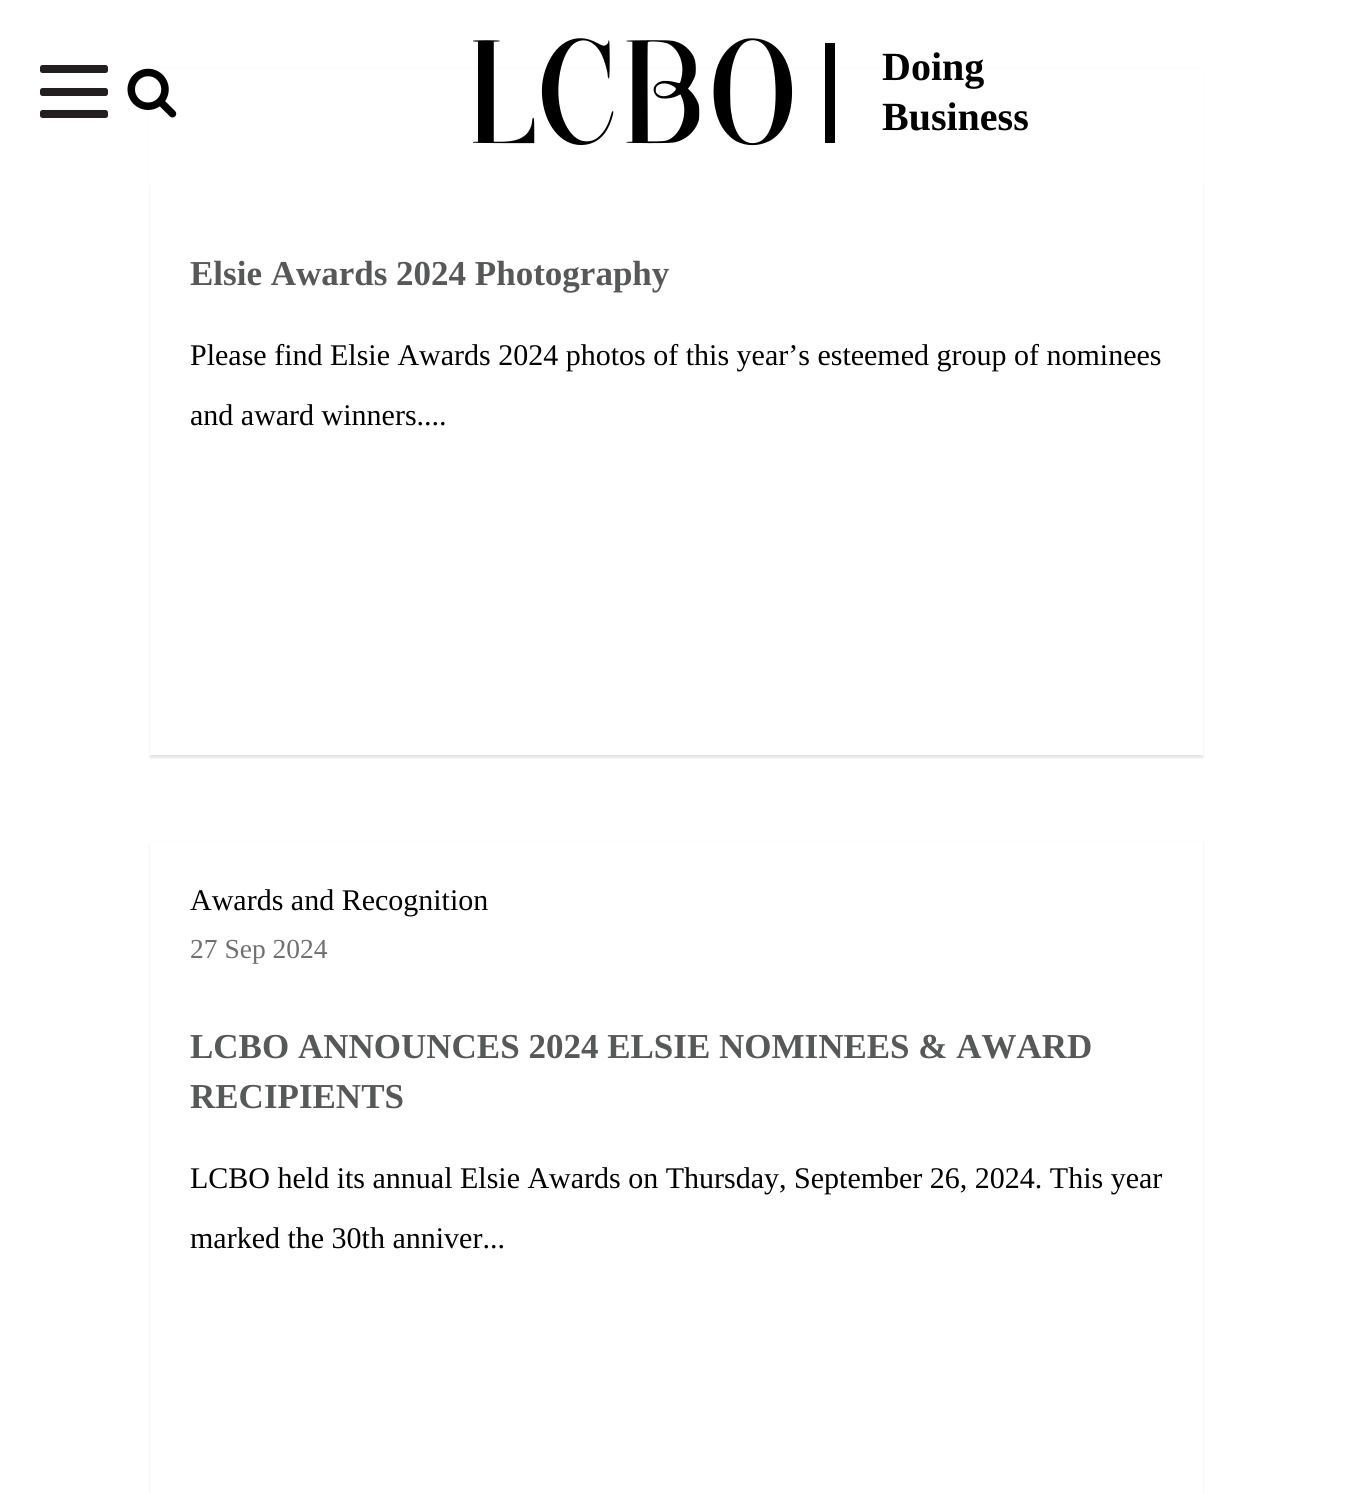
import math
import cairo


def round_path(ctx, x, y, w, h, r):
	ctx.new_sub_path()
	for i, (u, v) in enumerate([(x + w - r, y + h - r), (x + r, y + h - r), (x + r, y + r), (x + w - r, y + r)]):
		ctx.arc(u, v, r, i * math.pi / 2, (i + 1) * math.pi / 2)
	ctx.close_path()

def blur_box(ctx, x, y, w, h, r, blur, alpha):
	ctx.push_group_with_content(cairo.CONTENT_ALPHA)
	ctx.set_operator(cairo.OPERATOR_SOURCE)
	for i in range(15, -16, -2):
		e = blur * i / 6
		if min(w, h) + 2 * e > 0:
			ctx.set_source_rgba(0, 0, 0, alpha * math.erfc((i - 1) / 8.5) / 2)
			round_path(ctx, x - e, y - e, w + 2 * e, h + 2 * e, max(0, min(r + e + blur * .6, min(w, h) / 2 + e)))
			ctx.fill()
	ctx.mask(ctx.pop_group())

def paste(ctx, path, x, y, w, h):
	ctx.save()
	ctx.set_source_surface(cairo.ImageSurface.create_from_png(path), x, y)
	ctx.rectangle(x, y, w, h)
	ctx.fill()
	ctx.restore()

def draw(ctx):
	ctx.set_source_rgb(1, 1, 1)
	ctx.paint()
	ctx.set_source_rgb(0, 0, 0)
	blur_box(ctx, 150, 70, 1053, 688, 0, 1, 0.1)
	ctx.set_source_rgb(1, 1, 1)
	ctx.rectangle(149, 69, 1055, 116)
	ctx.fill()
	ctx.set_source_rgb(0.137, 0.122, 0.125)
	round_path(ctx, 40, 65, 68, 8, 2.5)
	ctx.fill()
	round_path(ctx, 40, 88, 68, 8, 2.5)
	ctx.fill()
	round_path(ctx, 40, 110, 68, 8, 2.5)
	ctx.fill()
	paste(ctx, 'media/1.png', 127, 68, 50, 50)
	paste(ctx, 'media/2.png', 473, 38, 320, 108)
	ctx.set_source_rgb(0, 0, 0)
	ctx.rectangle(825, 43, 10, 100)
	ctx.fill()
	ctx.select_font_face('Liberation Serif', cairo.FONT_SLANT_NORMAL, cairo.FONT_WEIGHT_BOLD)
	ctx.set_font_size(40)
	ctx.move_to(882, 80)
	ctx.show_text('Doing')
	ctx.move_to(882, 130)
	ctx.show_text('Business')
	ctx.set_source_rgb(1, 1, 1)
	ctx.rectangle(150, 185, 1053, 570)
	ctx.fill()
	ctx.set_font_size(35)
	ctx.set_source_rgb(0.341, 0.345, 0.345)
	ctx.move_to(190, 285)
	ctx.show_text('Elsie Awards 2024 Photography')
	ctx.select_font_face('Liberation Serif')
	ctx.set_font_size(30)
	ctx.set_source_rgb(0, 0, 0)
	ctx.move_to(190, 365)
	ctx.show_text('Please find Elsie Awards 2024 photos of this year’s esteemed group of nominees')
	ctx.move_to(190, 425)
	ctx.show_text('and award winners....')
	ctx.set_source_rgb(0, 0, 0)
	blur_box(ctx, 150, 843, 1053, 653, 0, 1, 0.1)
	ctx.set_source_rgb(1, 1, 1)
	ctx.rectangle(150, 842, 1053, 651)
	ctx.fill()
	ctx.set_source_rgb(0, 0, 0)
	ctx.move_to(190, 910)
	ctx.show_text('Awards and Recognition')
	ctx.set_font_size(27.5)
	ctx.set_source_rgb(0.443, 0.439, 0.439)
	ctx.move_to(190, 958)
	ctx.show_text('27 Sep 2024')
	ctx.select_font_face('Liberation Serif', cairo.FONT_SLANT_NORMAL, cairo.FONT_WEIGHT_BOLD)
	ctx.set_font_size(35)
	ctx.set_source_rgb(0.341, 0.345, 0.345)
	ctx.move_to(190, 1058)
	ctx.show_text('LCBO ANNOUNCES 2024 ELSIE NOMINEES & AWARD')
	ctx.move_to(190, 1108)
	ctx.show_text('RECIPIENTS')
	ctx.select_font_face('Liberation Serif')
	ctx.set_font_size(30)
	ctx.set_source_rgb(0, 0, 0)
	ctx.move_to(190, 1188)
	ctx.show_text('LCBO held its annual Elsie Awards on Thursday, September 26, 2024. This year')
	ctx.move_to(190, 1248)
	ctx.show_text('marked the 30th anniver...')


surface = cairo.ImageSurface(cairo.FORMAT_RGB24, 1351, 1493)
ctx = cairo.Context(surface)
options = cairo.FontOptions()
options.set_hint_metrics(cairo.HINT_METRICS_OFF)
options.set_hint_style(cairo.HINT_STYLE_NONE)
ctx.set_font_options(options)
ctx.set_miter_limit(4)
draw(ctx)
surface.write_to_png('image.png')
